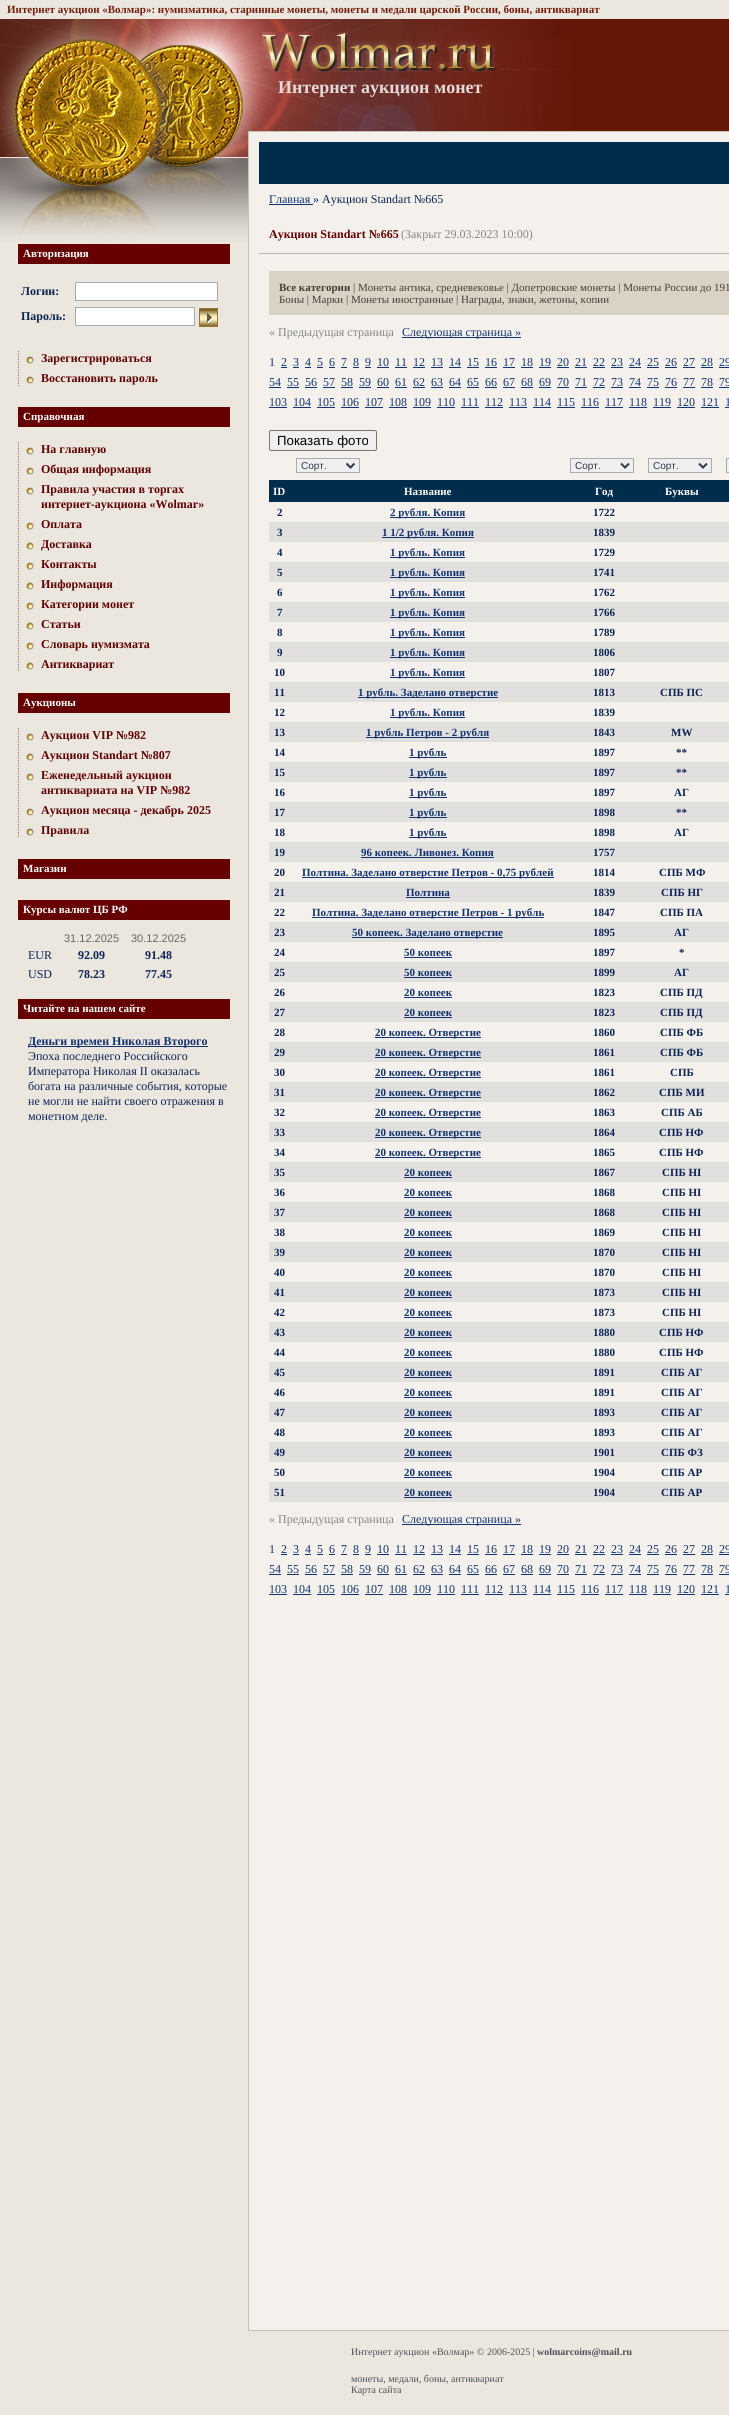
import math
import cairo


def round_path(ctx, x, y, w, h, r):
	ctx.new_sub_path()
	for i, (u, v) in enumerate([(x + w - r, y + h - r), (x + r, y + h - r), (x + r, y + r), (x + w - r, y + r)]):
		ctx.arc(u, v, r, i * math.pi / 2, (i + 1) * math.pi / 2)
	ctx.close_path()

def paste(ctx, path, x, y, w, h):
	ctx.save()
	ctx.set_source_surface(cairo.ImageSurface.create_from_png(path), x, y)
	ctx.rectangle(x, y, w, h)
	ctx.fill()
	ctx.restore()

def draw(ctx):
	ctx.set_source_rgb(0.918, 0.902, 0.871)
	ctx.paint()
	paste(ctx, 'media/1.png', 574, 19, 155, 112)
	ctx.select_font_face('Liberation Serif', cairo.FONT_SLANT_NORMAL, cairo.FONT_WEIGHT_BOLD)
	ctx.set_font_size(11)
	ctx.set_source_rgb(0.459, 0.118, 0.051)
	ctx.move_to(7, 13)
	ctx.show_text('Интернет аукцион «Волмар»: нумизматика, старинные монеты, монеты и медали царской России, боны, антиквариат')
	paste(ctx, 'media/2.png', 0, 19, 729, 223)
	paste(ctx, 'media/3.png', 262, 32, 236, 40)
	ctx.set_font_size(18)
	ctx.set_source_rgb(0.894, 0.851, 0.847)
	ctx.move_to(278, 93)
	ctx.show_text('Интернет аукцион монет')
	ctx.set_source_rgb(0.4, 0, 0)
	ctx.rectangle(18, 244, 212, 20)
	ctx.fill()
	ctx.set_font_size(11)
	ctx.set_source_rgb(1, 1, 1)
	ctx.move_to(23, 257)
	ctx.show_text('Авторизация')
	ctx.set_font_size(12)
	ctx.set_source_rgb(0.043, 0.141, 0.325)
	ctx.move_to(21, 295)
	ctx.show_text('Логин:')
	ctx.set_source_rgb(1, 1, 1)
	ctx.rectangle(75.5, 282.5, 142, 18)
	ctx.fill_preserve()
	ctx.set_source_rgb(0.647, 0.675, 0.698)
	ctx.set_line_width(1)
	ctx.stroke()
	ctx.set_source_rgb(0.043, 0.141, 0.325)
	ctx.move_to(21, 320)
	ctx.show_text('Пароль:')
	ctx.set_source_rgb(1, 1, 1)
	ctx.rectangle(75.5, 307.5, 119, 18)
	ctx.fill_preserve()
	ctx.set_source_rgb(0.647, 0.675, 0.698)
	ctx.stroke()
	paste(ctx, 'media/4.png', 199, 308, 19, 19)
	ctx.new_path()
	ctx.move_to(18.5, 351)
	ctx.line_to(18.5, 386)
	ctx.set_source_rgb(0.647, 0.431, 0.412)
	ctx.set_dash([1, 1])
	ctx.stroke()
	paste(ctx, 'media/5.png', 26, 356, 8, 8)
	ctx.set_source_rgb(0.373, 0.004, 0.004)
	ctx.move_to(41, 362)
	ctx.show_text('Зарегистрироваться')
	paste(ctx, 'media/5.png', 26, 376, 8, 8)
	ctx.move_to(41, 382)
	ctx.show_text('Восстановить пароль')
	ctx.set_source_rgb(0.4, 0, 0)
	ctx.rectangle(18, 407, 212, 20)
	ctx.fill()
	ctx.set_font_size(11)
	ctx.set_source_rgb(1, 1, 1)
	ctx.move_to(23, 420)
	ctx.show_text('Справочная')
	ctx.new_path()
	ctx.move_to(18.5, 442)
	ctx.line_to(18.5, 672)
	ctx.set_source_rgb(0.647, 0.431, 0.412)
	ctx.stroke()
	paste(ctx, 'media/5.png', 26, 447, 8, 8)
	ctx.set_font_size(12)
	ctx.set_source_rgb(0.373, 0.004, 0.004)
	ctx.move_to(41, 453)
	ctx.show_text('На главную')
	paste(ctx, 'media/5.png', 26, 467, 8, 8)
	ctx.move_to(41, 473)
	ctx.show_text('Общая информация')
	paste(ctx, 'media/5.png', 26, 487, 8, 8)
	ctx.move_to(41, 493)
	ctx.show_text('Правила участия в торгах')
	ctx.move_to(41, 508)
	ctx.show_text('интернет-аукциона «Wolmar»')
	paste(ctx, 'media/5.png', 26, 522, 8, 8)
	ctx.move_to(41, 528)
	ctx.show_text('Оплата')
	paste(ctx, 'media/5.png', 26, 542, 8, 8)
	ctx.move_to(41, 548)
	ctx.show_text('Доставка')
	paste(ctx, 'media/5.png', 26, 562, 8, 8)
	ctx.move_to(41, 568)
	ctx.show_text('Контакты')
	paste(ctx, 'media/5.png', 26, 582, 8, 8)
	ctx.move_to(41, 588)
	ctx.show_text('Информация')
	paste(ctx, 'media/5.png', 26, 602, 8, 8)
	ctx.move_to(41, 608)
	ctx.show_text('Категории монет')
	paste(ctx, 'media/5.png', 26, 622, 8, 8)
	ctx.move_to(41, 628)
	ctx.show_text('Статьи')
	paste(ctx, 'media/5.png', 26, 642, 8, 8)
	ctx.move_to(41, 648)
	ctx.show_text('Словарь нумизмата')
	paste(ctx, 'media/5.png', 26, 662, 8, 8)
	ctx.move_to(41, 668)
	ctx.show_text('Антиквариат')
	ctx.set_source_rgb(0.4, 0, 0)
	ctx.rectangle(18, 693, 212, 20)
	ctx.fill()
	ctx.set_font_size(11)
	ctx.set_source_rgb(1, 1, 1)
	ctx.move_to(23, 706)
	ctx.show_text('Аукционы')
	ctx.new_path()
	ctx.move_to(18.5, 728)
	ctx.line_to(18.5, 838)
	ctx.set_source_rgb(0.647, 0.431, 0.412)
	ctx.stroke()
	paste(ctx, 'media/5.png', 26, 733, 8, 8)
	ctx.set_font_size(12)
	ctx.set_source_rgb(0.373, 0.004, 0.004)
	ctx.move_to(41, 739)
	ctx.show_text('Аукцион VIP №982')
	paste(ctx, 'media/5.png', 26, 753, 8, 8)
	ctx.move_to(41, 759)
	ctx.show_text('Аукцион Standart №807')
	paste(ctx, 'media/5.png', 26, 773, 8, 8)
	ctx.move_to(41, 779)
	ctx.show_text('Еженедельный аукцион')
	ctx.move_to(41, 794)
	ctx.show_text('антиквариата на VIP №982')
	paste(ctx, 'media/5.png', 26, 808, 8, 8)
	ctx.move_to(41, 814)
	ctx.show_text('Аукцион месяца - декабрь 2025')
	paste(ctx, 'media/5.png', 26, 828, 8, 8)
	ctx.move_to(41, 834)
	ctx.show_text('Правила')
	ctx.set_source_rgb(0.4, 0, 0)
	ctx.rectangle(18, 859, 212, 20)
	ctx.fill()
	ctx.set_font_size(11)
	ctx.set_source_rgb(1, 1, 1)
	ctx.move_to(23, 872)
	ctx.show_text('Магазин')
	ctx.set_source_rgb(0.4, 0, 0)
	ctx.rectangle(18, 900, 212, 20)
	ctx.fill()
	ctx.set_source_rgb(1, 1, 1)
	ctx.move_to(23, 913)
	ctx.show_text('Курсы валют ЦБ РФ')
	ctx.select_font_face('Liberation Sans')
	ctx.set_source_rgb(0.4, 0.4, 0.4)
	ctx.move_to(64, 942)
	ctx.show_text('31.12.2025')
	ctx.move_to(131, 942)
	ctx.show_text('30.12.2025')
	ctx.select_font_face('Liberation Serif')
	ctx.set_font_size(12)
	ctx.set_source_rgb(0.043, 0.141, 0.325)
	ctx.move_to(28, 959)
	ctx.show_text('EUR')
	ctx.select_font_face('Liberation Serif', cairo.FONT_SLANT_NORMAL, cairo.FONT_WEIGHT_BOLD)
	ctx.move_to(78, 959)
	ctx.show_text('92.09')
	ctx.move_to(145, 959)
	ctx.show_text('91.48')
	ctx.select_font_face('Liberation Serif')
	ctx.move_to(28, 978)
	ctx.show_text('USD')
	ctx.select_font_face('Liberation Serif', cairo.FONT_SLANT_NORMAL, cairo.FONT_WEIGHT_BOLD)
	ctx.move_to(78, 978)
	ctx.show_text('78.23')
	ctx.move_to(145, 978)
	ctx.show_text('77.45')
	ctx.set_source_rgb(0.4, 0, 0)
	ctx.rectangle(18, 999, 212, 20)
	ctx.fill()
	ctx.set_font_size(11)
	ctx.set_source_rgb(1, 1, 1)
	ctx.move_to(23, 1012)
	ctx.show_text('Читайте на нашем сайте')
	ctx.set_source_rgb(0.075, 0.204, 0.439)
	ctx.rectangle(28, 1046, 180, 1)
	ctx.fill()
	ctx.set_font_size(12)
	ctx.move_to(28, 1045)
	ctx.show_text('Деньги времен Николая Второго')
	ctx.select_font_face('Liberation Serif')
	ctx.set_source_rgb(0.043, 0.141, 0.325)
	for x, y, s in [
		(28, 1060, 'Эпоха последнего Российского'),
		(28, 1075, 'Императора Николая II оказалась'),
		(28, 1090, 'богата на различные события, которые'),
		(28, 1105, 'не могли не найти своего отражения в'),
		(28, 1120, 'монетном деле.'),
	]:
		ctx.move_to(x, y)
		ctx.show_text(s)
	ctx.set_source_rgb(0.957, 0.945, 0.922)
	ctx.rectangle(249, 132, 480, 2198)
	ctx.fill()
	ctx.set_source_rgb(0.784, 0.753, 0.71)
	ctx.rectangle(248, 2330, 481, 1)
	ctx.rectangle(248, 242, 1, 2089)
	ctx.fill()
	ctx.set_source_rgb(0, 0.176, 0.298)
	ctx.rectangle(259, 142, 470, 42)
	ctx.fill()
	ctx.set_source_rgb(0.075, 0.204, 0.439)
	ctx.move_to(269, 203)
	ctx.show_text('Главная')
	ctx.rectangle(269, 204, 44, 1)
	ctx.fill()
	ctx.set_source_rgb(0.043, 0.141, 0.325)
	ctx.move_to(313, 203)
	ctx.show_text('» Аукцион Standart №665')
	ctx.set_source_rgb(0.733, 0.714, 0.682)
	ctx.rectangle(259, 253, 470, 1)
	ctx.fill()
	ctx.select_font_face('Liberation Serif', cairo.FONT_SLANT_NORMAL, cairo.FONT_WEIGHT_BOLD)
	ctx.set_source_rgb(0.4, 0, 0)
	ctx.move_to(269, 238)
	ctx.show_text('Аукцион Standart №665')
	ctx.select_font_face('Liberation Serif')
	ctx.set_source_rgb(0.533, 0.533, 0.533)
	ctx.move_to(401, 238)
	ctx.show_text('(Закрыт 29.03.2023 10:00)')
	ctx.set_source_rgb(0.855, 0.827, 0.773)
	ctx.rectangle(269, 271, 460, 44)
	ctx.fill()
	ctx.select_font_face('Liberation Serif', cairo.FONT_SLANT_NORMAL, cairo.FONT_WEIGHT_BOLD)
	ctx.set_font_size(11)
	ctx.set_source_rgb(0.267, 0.251, 0.22)
	ctx.move_to(279, 291)
	ctx.show_text('Все категории')
	ctx.select_font_face('Liberation Serif')
	ctx.move_to(353, 291)
	ctx.show_text('| Монеты антика, средневековье | Допетровские монеты | Монеты России до 191')
	ctx.move_to(279, 303)
	ctx.show_text('Боны | Марки | Монеты иностранные | Награды, знаки, жетоны, копии')
	ctx.set_font_size(12)
	ctx.set_source_rgb(0.533, 0.533, 0.533)
	ctx.move_to(269, 336)
	ctx.show_text('« Предыдущая страница')
	ctx.set_source_rgb(0.075, 0.204, 0.439)
	ctx.rectangle(402, 337, 119, 1)
	ctx.fill()
	for x, y, s in [
		(402, 336, 'Следующая страница »'),
		(269, 366, '1'),
		(281, 366, '2'),
	]:
		ctx.move_to(x, y)
		ctx.show_text(s)
	ctx.rectangle(281, 367, 6, 1)
	ctx.fill()
	ctx.move_to(293, 366)
	ctx.show_text('3')
	ctx.rectangle(293, 367, 6, 1)
	ctx.fill()
	ctx.move_to(305, 366)
	ctx.show_text('4')
	ctx.rectangle(305, 367, 6, 1)
	ctx.fill()
	ctx.move_to(317, 366)
	ctx.show_text('5')
	ctx.rectangle(317, 367, 6, 1)
	ctx.fill()
	ctx.move_to(329, 366)
	ctx.show_text('6')
	ctx.rectangle(329, 367, 6, 1)
	ctx.fill()
	ctx.move_to(341, 366)
	ctx.show_text('7')
	ctx.rectangle(341, 367, 6, 1)
	ctx.fill()
	ctx.move_to(353, 366)
	ctx.show_text('8')
	ctx.rectangle(353, 367, 6, 1)
	ctx.fill()
	ctx.move_to(365, 366)
	ctx.show_text('9')
	ctx.rectangle(365, 367, 6, 1)
	ctx.fill()
	ctx.move_to(377, 366)
	ctx.show_text('10')
	ctx.rectangle(377, 367, 12, 1)
	ctx.fill()
	ctx.move_to(395, 366)
	ctx.show_text('11')
	ctx.rectangle(395, 367, 12, 1)
	ctx.fill()
	ctx.move_to(413, 366)
	ctx.show_text('12')
	ctx.rectangle(413, 367, 12, 1)
	ctx.fill()
	ctx.move_to(431, 366)
	ctx.show_text('13')
	ctx.rectangle(431, 367, 12, 1)
	ctx.fill()
	ctx.move_to(449, 366)
	ctx.show_text('14')
	ctx.rectangle(449, 367, 12, 1)
	ctx.fill()
	ctx.move_to(467, 366)
	ctx.show_text('15')
	ctx.rectangle(467, 367, 12, 1)
	ctx.fill()
	ctx.move_to(485, 366)
	ctx.show_text('16')
	ctx.rectangle(485, 367, 12, 1)
	ctx.fill()
	ctx.move_to(503, 366)
	ctx.show_text('17')
	ctx.rectangle(503, 367, 12, 1)
	ctx.fill()
	ctx.move_to(521, 366)
	ctx.show_text('18')
	ctx.rectangle(521, 367, 12, 1)
	ctx.fill()
	ctx.move_to(539, 366)
	ctx.show_text('19')
	ctx.rectangle(539, 367, 12, 1)
	ctx.fill()
	ctx.move_to(557, 366)
	ctx.show_text('20')
	ctx.rectangle(557, 367, 12, 1)
	ctx.fill()
	ctx.move_to(575, 366)
	ctx.show_text('21')
	ctx.rectangle(575, 367, 12, 1)
	ctx.fill()
	ctx.move_to(593, 366)
	ctx.show_text('22')
	ctx.rectangle(593, 367, 12, 1)
	ctx.fill()
	ctx.move_to(611, 366)
	ctx.show_text('23')
	ctx.rectangle(611, 367, 12, 1)
	ctx.fill()
	ctx.move_to(629, 366)
	ctx.show_text('24')
	ctx.rectangle(629, 367, 12, 1)
	ctx.fill()
	ctx.move_to(647, 366)
	ctx.show_text('25')
	ctx.rectangle(647, 367, 12, 1)
	ctx.fill()
	ctx.move_to(665, 366)
	ctx.show_text('26')
	ctx.rectangle(665, 367, 12, 1)
	ctx.fill()
	ctx.move_to(683, 366)
	ctx.show_text('27')
	ctx.rectangle(683, 367, 12, 1)
	ctx.fill()
	ctx.move_to(701, 366)
	ctx.show_text('28')
	ctx.rectangle(701, 367, 12, 1)
	ctx.fill()
	ctx.move_to(719, 366)
	ctx.show_text('29')
	ctx.rectangle(719, 367, 10, 1)
	ctx.fill()
	ctx.move_to(269, 386)
	ctx.show_text('54')
	ctx.rectangle(269, 387, 12, 1)
	ctx.fill()
	ctx.move_to(287, 386)
	ctx.show_text('55')
	ctx.rectangle(287, 387, 12, 1)
	ctx.fill()
	ctx.move_to(305, 386)
	ctx.show_text('56')
	ctx.rectangle(305, 387, 12, 1)
	ctx.fill()
	ctx.move_to(323, 386)
	ctx.show_text('57')
	ctx.rectangle(323, 387, 12, 1)
	ctx.fill()
	ctx.move_to(341, 386)
	ctx.show_text('58')
	ctx.rectangle(341, 387, 12, 1)
	ctx.fill()
	ctx.move_to(359, 386)
	ctx.show_text('59')
	ctx.rectangle(359, 387, 12, 1)
	ctx.fill()
	ctx.move_to(377, 386)
	ctx.show_text('60')
	ctx.rectangle(377, 387, 12, 1)
	ctx.fill()
	ctx.move_to(395, 386)
	ctx.show_text('61')
	ctx.rectangle(395, 387, 12, 1)
	ctx.fill()
	ctx.move_to(413, 386)
	ctx.show_text('62')
	ctx.rectangle(413, 387, 12, 1)
	ctx.fill()
	ctx.move_to(431, 386)
	ctx.show_text('63')
	ctx.rectangle(431, 387, 12, 1)
	ctx.fill()
	ctx.move_to(449, 386)
	ctx.show_text('64')
	ctx.rectangle(449, 387, 12, 1)
	ctx.fill()
	ctx.move_to(467, 386)
	ctx.show_text('65')
	ctx.rectangle(467, 387, 12, 1)
	ctx.fill()
	ctx.move_to(485, 386)
	ctx.show_text('66')
	ctx.rectangle(485, 387, 12, 1)
	ctx.fill()
	ctx.move_to(503, 386)
	ctx.show_text('67')
	ctx.rectangle(503, 387, 12, 1)
	ctx.fill()
	ctx.move_to(521, 386)
	ctx.show_text('68')
	ctx.rectangle(521, 387, 12, 1)
	ctx.fill()
	ctx.move_to(539, 386)
	ctx.show_text('69')
	ctx.rectangle(539, 387, 12, 1)
	ctx.fill()
	ctx.move_to(557, 386)
	ctx.show_text('70')
	ctx.rectangle(557, 387, 12, 1)
	ctx.fill()
	ctx.move_to(575, 386)
	ctx.show_text('71')
	ctx.rectangle(575, 387, 12, 1)
	ctx.fill()
	ctx.move_to(593, 386)
	ctx.show_text('72')
	ctx.rectangle(593, 387, 12, 1)
	ctx.fill()
	ctx.move_to(611, 386)
	ctx.show_text('73')
	ctx.rectangle(611, 387, 12, 1)
	ctx.fill()
	ctx.move_to(629, 386)
	ctx.show_text('74')
	ctx.rectangle(629, 387, 12, 1)
	ctx.fill()
	ctx.move_to(647, 386)
	ctx.show_text('75')
	ctx.rectangle(647, 387, 12, 1)
	ctx.fill()
	ctx.move_to(665, 386)
	ctx.show_text('76')
	ctx.rectangle(665, 387, 12, 1)
	ctx.fill()
	ctx.move_to(683, 386)
	ctx.show_text('77')
	ctx.rectangle(683, 387, 12, 1)
	ctx.fill()
	ctx.move_to(701, 386)
	ctx.show_text('78')
	ctx.rectangle(701, 387, 12, 1)
	ctx.fill()
	ctx.move_to(719, 386)
	ctx.show_text('79')
	ctx.rectangle(719, 387, 10, 1)
	ctx.fill()
	ctx.move_to(269, 406)
	ctx.show_text('103')
	ctx.rectangle(269, 407, 18, 1)
	ctx.fill()
	ctx.move_to(293, 406)
	ctx.show_text('104')
	ctx.rectangle(293, 407, 18, 1)
	ctx.fill()
	ctx.move_to(317, 406)
	ctx.show_text('105')
	ctx.rectangle(317, 407, 18, 1)
	ctx.fill()
	ctx.move_to(341, 406)
	ctx.show_text('106')
	ctx.rectangle(341, 407, 18, 1)
	ctx.fill()
	ctx.move_to(365, 406)
	ctx.show_text('107')
	ctx.rectangle(365, 407, 18, 1)
	ctx.fill()
	ctx.move_to(389, 406)
	ctx.show_text('108')
	ctx.rectangle(389, 407, 18, 1)
	ctx.fill()
	ctx.move_to(413, 406)
	ctx.show_text('109')
	ctx.rectangle(413, 407, 18, 1)
	ctx.fill()
	ctx.move_to(437, 406)
	ctx.show_text('110')
	ctx.rectangle(437, 407, 18, 1)
	ctx.fill()
	ctx.move_to(461, 406)
	ctx.show_text('111')
	ctx.rectangle(461, 407, 18, 1)
	ctx.fill()
	ctx.move_to(485, 406)
	ctx.show_text('112')
	ctx.rectangle(485, 407, 18, 1)
	ctx.fill()
	ctx.move_to(509, 406)
	ctx.show_text('113')
	ctx.rectangle(509, 407, 18, 1)
	ctx.fill()
	ctx.move_to(533, 406)
	ctx.show_text('114')
	ctx.rectangle(533, 407, 18, 1)
	ctx.fill()
	ctx.move_to(557, 406)
	ctx.show_text('115')
	ctx.rectangle(557, 407, 18, 1)
	ctx.fill()
	ctx.move_to(581, 406)
	ctx.show_text('116')
	ctx.rectangle(581, 407, 18, 1)
	ctx.fill()
	ctx.move_to(605, 406)
	ctx.show_text('117')
	ctx.rectangle(605, 407, 18, 1)
	ctx.fill()
	ctx.move_to(629, 406)
	ctx.show_text('118')
	ctx.rectangle(629, 407, 18, 1)
	ctx.fill()
	ctx.move_to(653, 406)
	ctx.show_text('119')
	ctx.rectangle(653, 407, 18, 1)
	ctx.fill()
	ctx.move_to(677, 406)
	ctx.show_text('120')
	ctx.rectangle(677, 407, 18, 1)
	ctx.fill()
	ctx.move_to(701, 406)
	ctx.show_text('121')
	ctx.rectangle(701, 407, 18, 1)
	ctx.fill()
	ctx.move_to(725, 406)
	ctx.show_text('1')
	ctx.rectangle(725, 407, 4, 1)
	ctx.fill()
	ctx.set_source_rgb(0.937, 0.937, 0.937)
	round_path(ctx, 269.5, 430.5, 107, 20, 1.5)
	ctx.fill_preserve()
	ctx.set_source_rgb(0.463, 0.463, 0.463)
	ctx.set_dash([])
	ctx.stroke()
	ctx.select_font_face('Liberation Sans')
	ctx.set_font_size(13.25)
	ctx.set_source_rgb(0, 0, 0)
	ctx.move_to(277, 445)
	ctx.show_text('Показать фото')
	ctx.set_source_rgb(0.937, 0.937, 0.937)
	ctx.rectangle(296.5, 458.5, 63, 14)
	ctx.fill_preserve()
	ctx.set_source_rgb(0.647, 0.675, 0.698)
	ctx.stroke()
	ctx.new_path()
	ctx.move_to(346.5, 463.5)
	ctx.line_to(350.5, 467.5)
	ctx.line_to(354.5, 463.5)
	ctx.set_source_rgb(0.184, 0.212, 0.298)
	ctx.set_line_width(2)
	ctx.stroke()
	ctx.set_font_size(10)
	ctx.move_to(301, 469)
	ctx.show_text('Сорт.')
	ctx.set_source_rgb(0.937, 0.937, 0.937)
	ctx.rectangle(570.5, 458.5, 63, 14)
	ctx.fill_preserve()
	ctx.set_source_rgb(0.647, 0.675, 0.698)
	ctx.set_line_width(1)
	ctx.stroke()
	ctx.new_path()
	ctx.move_to(621, 463.5)
	ctx.line_to(625, 467.5)
	ctx.line_to(629, 463.5)
	ctx.set_source_rgb(0.184, 0.212, 0.298)
	ctx.set_line_width(2)
	ctx.stroke()
	ctx.move_to(575, 469)
	ctx.show_text('Сорт.')
	ctx.set_source_rgb(0.937, 0.937, 0.937)
	ctx.rectangle(648.5, 458.5, 63, 14)
	ctx.fill_preserve()
	ctx.set_source_rgb(0.647, 0.675, 0.698)
	ctx.set_line_width(1)
	ctx.stroke()
	ctx.new_path()
	ctx.move_to(699, 463.5)
	ctx.line_to(703, 467.5)
	ctx.line_to(707, 463.5)
	ctx.set_source_rgb(0.184, 0.212, 0.298)
	ctx.set_line_width(2)
	ctx.stroke()
	ctx.move_to(653, 469)
	ctx.show_text('Сорт.')
	ctx.set_source_rgb(0.937, 0.937, 0.937)
	ctx.rectangle(726.5, 458.5, 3, 14)
	ctx.fill_preserve()
	ctx.set_source_rgb(0.647, 0.675, 0.698)
	ctx.set_line_width(1)
	ctx.stroke()
	ctx.set_source_rgb(0, 0.176, 0.298)
	ctx.rectangle(269, 480, 460, 22)
	ctx.fill()
	ctx.select_font_face('Liberation Serif', cairo.FONT_SLANT_NORMAL, cairo.FONT_WEIGHT_BOLD)
	ctx.set_font_size(11)
	ctx.set_source_rgb(1, 1, 1)
	for x, y, s in [
		(273, 495, 'ID'),
		(404, 495, 'Название'),
		(595, 495, 'Год'),
		(665, 495, 'Буквы'),
	]:
		ctx.move_to(x, y)
		ctx.show_text(s)
	ctx.set_source_rgb(0.043, 0.141, 0.325)
	ctx.move_to(277, 516)
	ctx.show_text('2')
	ctx.set_source_rgb(0.075, 0.204, 0.439)
	ctx.rectangle(390, 517, 75, 1)
	ctx.fill()
	ctx.move_to(390, 516)
	ctx.show_text('2 рубля. Копия')
	ctx.set_source_rgb(0.043, 0.141, 0.325)
	ctx.move_to(593, 516)
	ctx.show_text('1722')
	ctx.set_source_rgb(0.882, 0.878, 0.875)
	ctx.rectangle(269, 522, 460, 20)
	ctx.fill()
	ctx.set_source_rgb(0.043, 0.141, 0.325)
	ctx.move_to(277, 536)
	ctx.show_text('3')
	ctx.set_source_rgb(0.075, 0.204, 0.439)
	ctx.rectangle(382, 537, 92, 1)
	ctx.fill()
	ctx.move_to(382, 536)
	ctx.show_text('1 1/2 рубля. Копия')
	ctx.set_source_rgb(0.043, 0.141, 0.325)
	ctx.move_to(593, 536)
	ctx.show_text('1839')
	ctx.move_to(277, 556)
	ctx.show_text('4')
	ctx.set_source_rgb(0.075, 0.204, 0.439)
	ctx.rectangle(390, 557, 75, 1)
	ctx.fill()
	ctx.move_to(390, 556)
	ctx.show_text('1 рубль. Копия')
	ctx.set_source_rgb(0.043, 0.141, 0.325)
	ctx.move_to(593, 556)
	ctx.show_text('1729')
	ctx.set_source_rgb(0.882, 0.878, 0.875)
	ctx.rectangle(269, 562, 460, 20)
	ctx.fill()
	ctx.set_source_rgb(0.043, 0.141, 0.325)
	ctx.move_to(277, 576)
	ctx.show_text('5')
	ctx.set_source_rgb(0.075, 0.204, 0.439)
	ctx.rectangle(390, 577, 75, 1)
	ctx.fill()
	ctx.move_to(390, 576)
	ctx.show_text('1 рубль. Копия')
	ctx.set_source_rgb(0.043, 0.141, 0.325)
	ctx.move_to(593, 576)
	ctx.show_text('1741')
	ctx.move_to(277, 596)
	ctx.show_text('6')
	ctx.set_source_rgb(0.075, 0.204, 0.439)
	ctx.rectangle(390, 597, 75, 1)
	ctx.fill()
	ctx.move_to(390, 596)
	ctx.show_text('1 рубль. Копия')
	ctx.set_source_rgb(0.043, 0.141, 0.325)
	ctx.move_to(593, 596)
	ctx.show_text('1762')
	ctx.set_source_rgb(0.882, 0.878, 0.875)
	ctx.rectangle(269, 602, 460, 20)
	ctx.fill()
	ctx.set_source_rgb(0.043, 0.141, 0.325)
	ctx.move_to(277, 616)
	ctx.show_text('7')
	ctx.set_source_rgb(0.075, 0.204, 0.439)
	ctx.rectangle(390, 617, 75, 1)
	ctx.fill()
	ctx.move_to(390, 616)
	ctx.show_text('1 рубль. Копия')
	ctx.set_source_rgb(0.043, 0.141, 0.325)
	ctx.move_to(593, 616)
	ctx.show_text('1766')
	ctx.move_to(277, 636)
	ctx.show_text('8')
	ctx.set_source_rgb(0.075, 0.204, 0.439)
	ctx.rectangle(390, 637, 75, 1)
	ctx.fill()
	ctx.move_to(390, 636)
	ctx.show_text('1 рубль. Копия')
	ctx.set_source_rgb(0.043, 0.141, 0.325)
	ctx.move_to(593, 636)
	ctx.show_text('1789')
	ctx.set_source_rgb(0.882, 0.878, 0.875)
	ctx.rectangle(269, 642, 460, 20)
	ctx.fill()
	ctx.set_source_rgb(0.043, 0.141, 0.325)
	ctx.move_to(277, 656)
	ctx.show_text('9')
	ctx.set_source_rgb(0.075, 0.204, 0.439)
	ctx.rectangle(390, 657, 75, 1)
	ctx.fill()
	ctx.move_to(390, 656)
	ctx.show_text('1 рубль. Копия')
	ctx.set_source_rgb(0.043, 0.141, 0.325)
	ctx.move_to(593, 656)
	ctx.show_text('1806')
	ctx.move_to(274, 676)
	ctx.show_text('10')
	ctx.set_source_rgb(0.075, 0.204, 0.439)
	ctx.rectangle(390, 677, 75, 1)
	ctx.fill()
	ctx.move_to(390, 676)
	ctx.show_text('1 рубль. Копия')
	ctx.set_source_rgb(0.043, 0.141, 0.325)
	ctx.move_to(593, 676)
	ctx.show_text('1807')
	ctx.set_source_rgb(0.882, 0.878, 0.875)
	ctx.rectangle(269, 682, 460, 20)
	ctx.fill()
	ctx.set_source_rgb(0.043, 0.141, 0.325)
	ctx.move_to(274, 696)
	ctx.show_text('11')
	ctx.set_source_rgb(0.075, 0.204, 0.439)
	ctx.rectangle(358, 697, 140, 1)
	ctx.fill()
	ctx.move_to(358, 696)
	ctx.show_text('1 рубль. Заделано отверстие')
	ctx.set_source_rgb(0.043, 0.141, 0.325)
	for x, y, s in [
		(593, 696, '1813'),
		(660, 696, 'СПБ ПС'),
		(274, 716, '12'),
	]:
		ctx.move_to(x, y)
		ctx.show_text(s)
	ctx.set_source_rgb(0.075, 0.204, 0.439)
	ctx.rectangle(390, 717, 75, 1)
	ctx.fill()
	ctx.move_to(390, 716)
	ctx.show_text('1 рубль. Копия')
	ctx.set_source_rgb(0.043, 0.141, 0.325)
	ctx.move_to(593, 716)
	ctx.show_text('1839')
	ctx.set_source_rgb(0.882, 0.878, 0.875)
	ctx.rectangle(269, 722, 460, 20)
	ctx.fill()
	ctx.set_source_rgb(0.043, 0.141, 0.325)
	ctx.move_to(274, 736)
	ctx.show_text('13')
	ctx.set_source_rgb(0.075, 0.204, 0.439)
	ctx.rectangle(366, 737, 123, 1)
	ctx.fill()
	ctx.move_to(366, 736)
	ctx.show_text('1 рубль Петров - 2 рубля')
	ctx.set_source_rgb(0.043, 0.141, 0.325)
	for x, y, s in [
		(593, 736, '1843'),
		(671, 736, 'МW'),
		(274, 756, '14'),
	]:
		ctx.move_to(x, y)
		ctx.show_text(s)
	ctx.set_source_rgb(0.075, 0.204, 0.439)
	ctx.rectangle(409, 757, 38, 1)
	ctx.fill()
	ctx.move_to(409, 756)
	ctx.show_text('1 рубль')
	ctx.set_source_rgb(0.043, 0.141, 0.325)
	ctx.move_to(593, 756)
	ctx.show_text('1897')
	ctx.move_to(676, 756)
	ctx.show_text('**')
	ctx.set_source_rgb(0.882, 0.878, 0.875)
	ctx.rectangle(269, 762, 460, 20)
	ctx.fill()
	ctx.set_source_rgb(0.043, 0.141, 0.325)
	ctx.move_to(274, 776)
	ctx.show_text('15')
	ctx.set_source_rgb(0.075, 0.204, 0.439)
	ctx.rectangle(409, 777, 38, 1)
	ctx.fill()
	ctx.move_to(409, 776)
	ctx.show_text('1 рубль')
	ctx.set_source_rgb(0.043, 0.141, 0.325)
	for x, y, s in [
		(593, 776, '1897'),
		(676, 776, '**'),
		(274, 796, '16'),
	]:
		ctx.move_to(x, y)
		ctx.show_text(s)
	ctx.set_source_rgb(0.075, 0.204, 0.439)
	ctx.rectangle(409, 797, 38, 1)
	ctx.fill()
	ctx.move_to(409, 796)
	ctx.show_text('1 рубль')
	ctx.set_source_rgb(0.043, 0.141, 0.325)
	ctx.move_to(593, 796)
	ctx.show_text('1897')
	ctx.move_to(674, 796)
	ctx.show_text('АГ')
	ctx.set_source_rgb(0.882, 0.878, 0.875)
	ctx.rectangle(269, 802, 460, 20)
	ctx.fill()
	ctx.set_source_rgb(0.043, 0.141, 0.325)
	ctx.move_to(274, 816)
	ctx.show_text('17')
	ctx.set_source_rgb(0.075, 0.204, 0.439)
	ctx.rectangle(409, 817, 38, 1)
	ctx.fill()
	ctx.move_to(409, 816)
	ctx.show_text('1 рубль')
	ctx.set_source_rgb(0.043, 0.141, 0.325)
	for x, y, s in [
		(593, 816, '1898'),
		(676, 816, '**'),
		(274, 836, '18'),
	]:
		ctx.move_to(x, y)
		ctx.show_text(s)
	ctx.set_source_rgb(0.075, 0.204, 0.439)
	ctx.rectangle(409, 837, 38, 1)
	ctx.fill()
	ctx.move_to(409, 836)
	ctx.show_text('1 рубль')
	ctx.set_source_rgb(0.043, 0.141, 0.325)
	ctx.move_to(593, 836)
	ctx.show_text('1898')
	ctx.move_to(674, 836)
	ctx.show_text('АГ')
	ctx.set_source_rgb(0.882, 0.878, 0.875)
	ctx.rectangle(269, 842, 460, 20)
	ctx.fill()
	ctx.set_source_rgb(0.043, 0.141, 0.325)
	ctx.move_to(274, 856)
	ctx.show_text('19')
	ctx.set_source_rgb(0.075, 0.204, 0.439)
	ctx.move_to(361, 856)
	ctx.show_text('96 копеек. Ливонез. Копия')
	ctx.rectangle(361, 857, 133, 1)
	ctx.fill()
	ctx.set_source_rgb(0.043, 0.141, 0.325)
	ctx.move_to(593, 856)
	ctx.show_text('1757')
	ctx.move_to(274, 876)
	ctx.show_text('20')
	ctx.set_source_rgb(0.075, 0.204, 0.439)
	ctx.rectangle(302, 877, 252, 1)
	ctx.fill()
	ctx.move_to(302, 876)
	ctx.show_text('Полтина. Заделано отверстие Петров - 0,75 рублей')
	ctx.set_source_rgb(0.043, 0.141, 0.325)
	ctx.move_to(593, 876)
	ctx.show_text('1814')
	ctx.move_to(659, 876)
	ctx.show_text('СПБ МФ')
	ctx.set_source_rgb(0.882, 0.878, 0.875)
	ctx.rectangle(269, 882, 460, 20)
	ctx.fill()
	ctx.set_source_rgb(0.043, 0.141, 0.325)
	ctx.move_to(274, 896)
	ctx.show_text('21')
	ctx.set_source_rgb(0.075, 0.204, 0.439)
	ctx.move_to(406, 896)
	ctx.show_text('Полтина')
	ctx.rectangle(406, 897, 44, 1)
	ctx.fill()
	ctx.set_source_rgb(0.043, 0.141, 0.325)
	for x, y, s in [
		(593, 896, '1839'),
		(661, 896, 'СПБ НГ'),
		(274, 916, '22'),
	]:
		ctx.move_to(x, y)
		ctx.show_text(s)
	ctx.set_source_rgb(0.075, 0.204, 0.439)
	ctx.rectangle(312, 917, 232, 1)
	ctx.fill()
	ctx.move_to(312, 916)
	ctx.show_text('Полтина. Заделано отверстие Петров - 1 рубль')
	ctx.set_source_rgb(0.043, 0.141, 0.325)
	ctx.move_to(593, 916)
	ctx.show_text('1847')
	ctx.move_to(660, 916)
	ctx.show_text('СПБ ПА')
	ctx.set_source_rgb(0.882, 0.878, 0.875)
	ctx.rectangle(269, 922, 460, 20)
	ctx.fill()
	ctx.set_source_rgb(0.043, 0.141, 0.325)
	ctx.move_to(274, 936)
	ctx.show_text('23')
	ctx.set_source_rgb(0.075, 0.204, 0.439)
	ctx.rectangle(352, 937, 151, 1)
	ctx.fill()
	ctx.move_to(352, 936)
	ctx.show_text('50 копеек. Заделано отверстие')
	ctx.set_source_rgb(0.043, 0.141, 0.325)
	for x, y, s in [
		(593, 936, '1895'),
		(674, 936, 'АГ'),
		(274, 956, '24'),
	]:
		ctx.move_to(x, y)
		ctx.show_text(s)
	ctx.set_source_rgb(0.075, 0.204, 0.439)
	ctx.move_to(404, 956)
	ctx.show_text('50 копеек')
	ctx.rectangle(404, 957, 48, 1)
	ctx.fill()
	ctx.set_source_rgb(0.043, 0.141, 0.325)
	ctx.move_to(593, 956)
	ctx.show_text('1897')
	ctx.move_to(679, 956)
	ctx.show_text('*')
	ctx.set_source_rgb(0.882, 0.878, 0.875)
	ctx.rectangle(269, 962, 460, 20)
	ctx.fill()
	ctx.set_source_rgb(0.043, 0.141, 0.325)
	ctx.move_to(274, 976)
	ctx.show_text('25')
	ctx.set_source_rgb(0.075, 0.204, 0.439)
	ctx.move_to(404, 976)
	ctx.show_text('50 копеек')
	ctx.rectangle(404, 977, 48, 1)
	ctx.fill()
	ctx.set_source_rgb(0.043, 0.141, 0.325)
	for x, y, s in [
		(593, 976, '1899'),
		(674, 976, 'АГ'),
		(274, 996, '26'),
	]:
		ctx.move_to(x, y)
		ctx.show_text(s)
	ctx.set_source_rgb(0.075, 0.204, 0.439)
	ctx.move_to(404, 996)
	ctx.show_text('20 копеек')
	ctx.rectangle(404, 997, 48, 1)
	ctx.fill()
	ctx.set_source_rgb(0.043, 0.141, 0.325)
	ctx.move_to(593, 996)
	ctx.show_text('1823')
	ctx.move_to(660, 996)
	ctx.show_text('СПБ ПД')
	ctx.set_source_rgb(0.882, 0.878, 0.875)
	ctx.rectangle(269, 1002, 460, 20)
	ctx.fill()
	ctx.set_source_rgb(0.043, 0.141, 0.325)
	ctx.move_to(274, 1016)
	ctx.show_text('27')
	ctx.set_source_rgb(0.075, 0.204, 0.439)
	ctx.move_to(404, 1016)
	ctx.show_text('20 копеек')
	ctx.rectangle(404, 1017, 48, 1)
	ctx.fill()
	ctx.set_source_rgb(0.043, 0.141, 0.325)
	for x, y, s in [
		(593, 1016, '1823'),
		(660, 1016, 'СПБ ПД'),
		(274, 1036, '28'),
	]:
		ctx.move_to(x, y)
		ctx.show_text(s)
	ctx.set_source_rgb(0.075, 0.204, 0.439)
	ctx.rectangle(375, 1037, 106, 1)
	ctx.fill()
	ctx.move_to(375, 1036)
	ctx.show_text('20 копеек. Отверстие')
	ctx.set_source_rgb(0.043, 0.141, 0.325)
	ctx.move_to(593, 1036)
	ctx.show_text('1860')
	ctx.move_to(660, 1036)
	ctx.show_text('СПБ ФБ')
	ctx.set_source_rgb(0.882, 0.878, 0.875)
	ctx.rectangle(269, 1042, 460, 20)
	ctx.fill()
	ctx.set_source_rgb(0.043, 0.141, 0.325)
	ctx.move_to(274, 1056)
	ctx.show_text('29')
	ctx.set_source_rgb(0.075, 0.204, 0.439)
	ctx.rectangle(375, 1057, 106, 1)
	ctx.fill()
	ctx.move_to(375, 1056)
	ctx.show_text('20 копеек. Отверстие')
	ctx.set_source_rgb(0.043, 0.141, 0.325)
	for x, y, s in [
		(593, 1056, '1861'),
		(660, 1056, 'СПБ ФБ'),
		(274, 1076, '30'),
	]:
		ctx.move_to(x, y)
		ctx.show_text(s)
	ctx.set_source_rgb(0.075, 0.204, 0.439)
	ctx.rectangle(375, 1077, 106, 1)
	ctx.fill()
	ctx.move_to(375, 1076)
	ctx.show_text('20 копеек. Отверстие')
	ctx.set_source_rgb(0.043, 0.141, 0.325)
	ctx.move_to(593, 1076)
	ctx.show_text('1861')
	ctx.move_to(670, 1076)
	ctx.show_text('СПБ')
	ctx.set_source_rgb(0.882, 0.878, 0.875)
	ctx.rectangle(269, 1082, 460, 20)
	ctx.fill()
	ctx.set_source_rgb(0.043, 0.141, 0.325)
	ctx.move_to(274, 1096)
	ctx.show_text('31')
	ctx.set_source_rgb(0.075, 0.204, 0.439)
	ctx.rectangle(375, 1097, 106, 1)
	ctx.fill()
	ctx.move_to(375, 1096)
	ctx.show_text('20 копеек. Отверстие')
	ctx.set_source_rgb(0.043, 0.141, 0.325)
	for x, y, s in [
		(593, 1096, '1862'),
		(659, 1096, 'СПБ МИ'),
		(274, 1116, '32'),
	]:
		ctx.move_to(x, y)
		ctx.show_text(s)
	ctx.set_source_rgb(0.075, 0.204, 0.439)
	ctx.rectangle(375, 1117, 106, 1)
	ctx.fill()
	ctx.move_to(375, 1116)
	ctx.show_text('20 копеек. Отверстие')
	ctx.set_source_rgb(0.043, 0.141, 0.325)
	ctx.move_to(593, 1116)
	ctx.show_text('1863')
	ctx.move_to(661, 1116)
	ctx.show_text('СПБ АБ')
	ctx.set_source_rgb(0.882, 0.878, 0.875)
	ctx.rectangle(269, 1122, 460, 20)
	ctx.fill()
	ctx.set_source_rgb(0.043, 0.141, 0.325)
	ctx.move_to(274, 1136)
	ctx.show_text('33')
	ctx.set_source_rgb(0.075, 0.204, 0.439)
	ctx.rectangle(375, 1137, 106, 1)
	ctx.fill()
	ctx.move_to(375, 1136)
	ctx.show_text('20 копеек. Отверстие')
	ctx.set_source_rgb(0.043, 0.141, 0.325)
	for x, y, s in [
		(593, 1136, '1864'),
		(659, 1136, 'СПБ НФ'),
		(274, 1156, '34'),
	]:
		ctx.move_to(x, y)
		ctx.show_text(s)
	ctx.set_source_rgb(0.075, 0.204, 0.439)
	ctx.rectangle(375, 1157, 106, 1)
	ctx.fill()
	ctx.move_to(375, 1156)
	ctx.show_text('20 копеек. Отверстие')
	ctx.set_source_rgb(0.043, 0.141, 0.325)
	ctx.move_to(593, 1156)
	ctx.show_text('1865')
	ctx.move_to(659, 1156)
	ctx.show_text('СПБ НФ')
	ctx.set_source_rgb(0.882, 0.878, 0.875)
	ctx.rectangle(269, 1162, 460, 20)
	ctx.fill()
	ctx.set_source_rgb(0.043, 0.141, 0.325)
	ctx.move_to(274, 1176)
	ctx.show_text('35')
	ctx.set_source_rgb(0.075, 0.204, 0.439)
	ctx.move_to(404, 1176)
	ctx.show_text('20 копеек')
	ctx.rectangle(404, 1177, 48, 1)
	ctx.fill()
	ctx.set_source_rgb(0.043, 0.141, 0.325)
	for x, y, s in [
		(593, 1176, '1867'),
		(662, 1176, 'СПБ HI'),
		(274, 1196, '36'),
	]:
		ctx.move_to(x, y)
		ctx.show_text(s)
	ctx.set_source_rgb(0.075, 0.204, 0.439)
	ctx.move_to(404, 1196)
	ctx.show_text('20 копеек')
	ctx.rectangle(404, 1197, 48, 1)
	ctx.fill()
	ctx.set_source_rgb(0.043, 0.141, 0.325)
	ctx.move_to(593, 1196)
	ctx.show_text('1868')
	ctx.move_to(662, 1196)
	ctx.show_text('СПБ НI')
	ctx.set_source_rgb(0.882, 0.878, 0.875)
	ctx.rectangle(269, 1202, 460, 20)
	ctx.fill()
	ctx.set_source_rgb(0.043, 0.141, 0.325)
	ctx.move_to(274, 1216)
	ctx.show_text('37')
	ctx.set_source_rgb(0.075, 0.204, 0.439)
	ctx.move_to(404, 1216)
	ctx.show_text('20 копеек')
	ctx.rectangle(404, 1217, 48, 1)
	ctx.fill()
	ctx.set_source_rgb(0.043, 0.141, 0.325)
	for x, y, s in [
		(593, 1216, '1868'),
		(662, 1216, 'СПБ НI'),
		(274, 1236, '38'),
	]:
		ctx.move_to(x, y)
		ctx.show_text(s)
	ctx.set_source_rgb(0.075, 0.204, 0.439)
	ctx.move_to(404, 1236)
	ctx.show_text('20 копеек')
	ctx.rectangle(404, 1237, 48, 1)
	ctx.fill()
	ctx.set_source_rgb(0.043, 0.141, 0.325)
	ctx.move_to(593, 1236)
	ctx.show_text('1869')
	ctx.move_to(662, 1236)
	ctx.show_text('СПБ НI')
	ctx.set_source_rgb(0.882, 0.878, 0.875)
	ctx.rectangle(269, 1242, 460, 20)
	ctx.fill()
	ctx.set_source_rgb(0.043, 0.141, 0.325)
	ctx.move_to(274, 1256)
	ctx.show_text('39')
	ctx.set_source_rgb(0.075, 0.204, 0.439)
	ctx.move_to(404, 1256)
	ctx.show_text('20 копеек')
	ctx.rectangle(404, 1257, 48, 1)
	ctx.fill()
	ctx.set_source_rgb(0.043, 0.141, 0.325)
	for x, y, s in [
		(593, 1256, '1870'),
		(662, 1256, 'СПБ НI'),
		(274, 1276, '40'),
	]:
		ctx.move_to(x, y)
		ctx.show_text(s)
	ctx.set_source_rgb(0.075, 0.204, 0.439)
	ctx.move_to(404, 1276)
	ctx.show_text('20 копеек')
	ctx.rectangle(404, 1277, 48, 1)
	ctx.fill()
	ctx.set_source_rgb(0.043, 0.141, 0.325)
	ctx.move_to(593, 1276)
	ctx.show_text('1870')
	ctx.move_to(662, 1276)
	ctx.show_text('СПБ НI')
	ctx.set_source_rgb(0.882, 0.878, 0.875)
	ctx.rectangle(269, 1282, 460, 20)
	ctx.fill()
	ctx.set_source_rgb(0.043, 0.141, 0.325)
	ctx.move_to(274, 1296)
	ctx.show_text('41')
	ctx.set_source_rgb(0.075, 0.204, 0.439)
	ctx.move_to(404, 1296)
	ctx.show_text('20 копеек')
	ctx.rectangle(404, 1297, 48, 1)
	ctx.fill()
	ctx.set_source_rgb(0.043, 0.141, 0.325)
	for x, y, s in [
		(593, 1296, '1873'),
		(662, 1296, 'СПБ НI'),
		(274, 1316, '42'),
	]:
		ctx.move_to(x, y)
		ctx.show_text(s)
	ctx.set_source_rgb(0.075, 0.204, 0.439)
	ctx.move_to(404, 1316)
	ctx.show_text('20 копеек')
	ctx.rectangle(404, 1317, 48, 1)
	ctx.fill()
	ctx.set_source_rgb(0.043, 0.141, 0.325)
	ctx.move_to(593, 1316)
	ctx.show_text('1873')
	ctx.move_to(662, 1316)
	ctx.show_text('СПБ НI')
	ctx.set_source_rgb(0.882, 0.878, 0.875)
	ctx.rectangle(269, 1322, 460, 20)
	ctx.fill()
	ctx.set_source_rgb(0.043, 0.141, 0.325)
	ctx.move_to(274, 1336)
	ctx.show_text('43')
	ctx.set_source_rgb(0.075, 0.204, 0.439)
	ctx.move_to(404, 1336)
	ctx.show_text('20 копеек')
	ctx.rectangle(404, 1337, 48, 1)
	ctx.fill()
	ctx.set_source_rgb(0.043, 0.141, 0.325)
	for x, y, s in [
		(593, 1336, '1880'),
		(659, 1336, 'СПБ НФ'),
		(274, 1356, '44'),
	]:
		ctx.move_to(x, y)
		ctx.show_text(s)
	ctx.set_source_rgb(0.075, 0.204, 0.439)
	ctx.move_to(404, 1356)
	ctx.show_text('20 копеек')
	ctx.rectangle(404, 1357, 48, 1)
	ctx.fill()
	ctx.set_source_rgb(0.043, 0.141, 0.325)
	ctx.move_to(593, 1356)
	ctx.show_text('1880')
	ctx.move_to(659, 1356)
	ctx.show_text('СПБ НФ')
	ctx.set_source_rgb(0.882, 0.878, 0.875)
	ctx.rectangle(269, 1362, 460, 20)
	ctx.fill()
	ctx.set_source_rgb(0.043, 0.141, 0.325)
	ctx.move_to(274, 1376)
	ctx.show_text('45')
	ctx.set_source_rgb(0.075, 0.204, 0.439)
	ctx.move_to(404, 1376)
	ctx.show_text('20 копеек')
	ctx.rectangle(404, 1377, 48, 1)
	ctx.fill()
	ctx.set_source_rgb(0.043, 0.141, 0.325)
	for x, y, s in [
		(593, 1376, '1891'),
		(661, 1376, 'СПБ АГ'),
		(274, 1396, '46'),
	]:
		ctx.move_to(x, y)
		ctx.show_text(s)
	ctx.set_source_rgb(0.075, 0.204, 0.439)
	ctx.move_to(404, 1396)
	ctx.show_text('20 копеек')
	ctx.rectangle(404, 1397, 48, 1)
	ctx.fill()
	ctx.set_source_rgb(0.043, 0.141, 0.325)
	ctx.move_to(593, 1396)
	ctx.show_text('1891')
	ctx.move_to(661, 1396)
	ctx.show_text('СПБ АГ')
	ctx.set_source_rgb(0.882, 0.878, 0.875)
	ctx.rectangle(269, 1402, 460, 20)
	ctx.fill()
	ctx.set_source_rgb(0.043, 0.141, 0.325)
	ctx.move_to(274, 1416)
	ctx.show_text('47')
	ctx.set_source_rgb(0.075, 0.204, 0.439)
	ctx.move_to(404, 1416)
	ctx.show_text('20 копеек')
	ctx.rectangle(404, 1417, 48, 1)
	ctx.fill()
	ctx.set_source_rgb(0.043, 0.141, 0.325)
	for x, y, s in [
		(593, 1416, '1893'),
		(661, 1416, 'СПБ АГ'),
		(274, 1436, '48'),
	]:
		ctx.move_to(x, y)
		ctx.show_text(s)
	ctx.set_source_rgb(0.075, 0.204, 0.439)
	ctx.move_to(404, 1436)
	ctx.show_text('20 копеек')
	ctx.rectangle(404, 1437, 48, 1)
	ctx.fill()
	ctx.set_source_rgb(0.043, 0.141, 0.325)
	ctx.move_to(593, 1436)
	ctx.show_text('1893')
	ctx.move_to(661, 1436)
	ctx.show_text('СПБ АГ')
	ctx.set_source_rgb(0.882, 0.878, 0.875)
	ctx.rectangle(269, 1442, 460, 20)
	ctx.fill()
	ctx.set_source_rgb(0.043, 0.141, 0.325)
	ctx.move_to(274, 1456)
	ctx.show_text('49')
	ctx.set_source_rgb(0.075, 0.204, 0.439)
	ctx.move_to(404, 1456)
	ctx.show_text('20 копеек')
	ctx.rectangle(404, 1457, 48, 1)
	ctx.fill()
	ctx.set_source_rgb(0.043, 0.141, 0.325)
	for x, y, s in [
		(593, 1456, '1901'),
		(661, 1456, 'СПБ ФЗ'),
		(274, 1476, '50'),
	]:
		ctx.move_to(x, y)
		ctx.show_text(s)
	ctx.set_source_rgb(0.075, 0.204, 0.439)
	ctx.move_to(404, 1476)
	ctx.show_text('20 копеек')
	ctx.rectangle(404, 1477, 48, 1)
	ctx.fill()
	ctx.set_source_rgb(0.043, 0.141, 0.325)
	ctx.move_to(593, 1476)
	ctx.show_text('1904')
	ctx.move_to(661, 1476)
	ctx.show_text('СПБ АР')
	ctx.set_source_rgb(0.882, 0.878, 0.875)
	ctx.rectangle(269, 1482, 460, 20)
	ctx.fill()
	ctx.set_source_rgb(0.043, 0.141, 0.325)
	ctx.move_to(274, 1496)
	ctx.show_text('51')
	ctx.set_source_rgb(0.075, 0.204, 0.439)
	ctx.move_to(404, 1496)
	ctx.show_text('20 копеек')
	ctx.rectangle(404, 1497, 48, 1)
	ctx.fill()
	ctx.set_source_rgb(0.043, 0.141, 0.325)
	ctx.move_to(593, 1496)
	ctx.show_text('1904')
	ctx.move_to(661, 1496)
	ctx.show_text('СПБ АР')
	ctx.select_font_face('Liberation Serif')
	ctx.set_font_size(12)
	ctx.set_source_rgb(0.533, 0.533, 0.533)
	ctx.move_to(269, 1523)
	ctx.show_text('« Предыдущая страница')
	ctx.set_source_rgb(0.075, 0.204, 0.439)
	ctx.rectangle(402, 1524, 119, 1)
	ctx.fill()
	for x, y, s in [
		(402, 1523, 'Следующая страница »'),
		(269, 1553, '1'),
		(281, 1553, '2'),
	]:
		ctx.move_to(x, y)
		ctx.show_text(s)
	ctx.rectangle(281, 1554, 6, 1)
	ctx.fill()
	ctx.move_to(293, 1553)
	ctx.show_text('3')
	ctx.rectangle(293, 1554, 6, 1)
	ctx.fill()
	ctx.move_to(305, 1553)
	ctx.show_text('4')
	ctx.rectangle(305, 1554, 6, 1)
	ctx.fill()
	ctx.move_to(317, 1553)
	ctx.show_text('5')
	ctx.rectangle(317, 1554, 6, 1)
	ctx.fill()
	ctx.move_to(329, 1553)
	ctx.show_text('6')
	ctx.rectangle(329, 1554, 6, 1)
	ctx.fill()
	ctx.move_to(341, 1553)
	ctx.show_text('7')
	ctx.rectangle(341, 1554, 6, 1)
	ctx.fill()
	ctx.move_to(353, 1553)
	ctx.show_text('8')
	ctx.rectangle(353, 1554, 6, 1)
	ctx.fill()
	ctx.move_to(365, 1553)
	ctx.show_text('9')
	ctx.rectangle(365, 1554, 6, 1)
	ctx.fill()
	ctx.move_to(377, 1553)
	ctx.show_text('10')
	ctx.rectangle(377, 1554, 12, 1)
	ctx.fill()
	ctx.move_to(395, 1553)
	ctx.show_text('11')
	ctx.rectangle(395, 1554, 12, 1)
	ctx.fill()
	ctx.move_to(413, 1553)
	ctx.show_text('12')
	ctx.rectangle(413, 1554, 12, 1)
	ctx.fill()
	ctx.move_to(431, 1553)
	ctx.show_text('13')
	ctx.rectangle(431, 1554, 12, 1)
	ctx.fill()
	ctx.move_to(449, 1553)
	ctx.show_text('14')
	ctx.rectangle(449, 1554, 12, 1)
	ctx.fill()
	ctx.move_to(467, 1553)
	ctx.show_text('15')
	ctx.rectangle(467, 1554, 12, 1)
	ctx.fill()
	ctx.move_to(485, 1553)
	ctx.show_text('16')
	ctx.rectangle(485, 1554, 12, 1)
	ctx.fill()
	ctx.move_to(503, 1553)
	ctx.show_text('17')
	ctx.rectangle(503, 1554, 12, 1)
	ctx.fill()
	ctx.move_to(521, 1553)
	ctx.show_text('18')
	ctx.rectangle(521, 1554, 12, 1)
	ctx.fill()
	ctx.move_to(539, 1553)
	ctx.show_text('19')
	ctx.rectangle(539, 1554, 12, 1)
	ctx.fill()
	ctx.move_to(557, 1553)
	ctx.show_text('20')
	ctx.rectangle(557, 1554, 12, 1)
	ctx.fill()
	ctx.move_to(575, 1553)
	ctx.show_text('21')
	ctx.rectangle(575, 1554, 12, 1)
	ctx.fill()
	ctx.move_to(593, 1553)
	ctx.show_text('22')
	ctx.rectangle(593, 1554, 12, 1)
	ctx.fill()
	ctx.move_to(611, 1553)
	ctx.show_text('23')
	ctx.rectangle(611, 1554, 12, 1)
	ctx.fill()
	ctx.move_to(629, 1553)
	ctx.show_text('24')
	ctx.rectangle(629, 1554, 12, 1)
	ctx.fill()
	ctx.move_to(647, 1553)
	ctx.show_text('25')
	ctx.rectangle(647, 1554, 12, 1)
	ctx.fill()
	ctx.move_to(665, 1553)
	ctx.show_text('26')
	ctx.rectangle(665, 1554, 12, 1)
	ctx.fill()
	ctx.move_to(683, 1553)
	ctx.show_text('27')
	ctx.rectangle(683, 1554, 12, 1)
	ctx.fill()
	ctx.move_to(701, 1553)
	ctx.show_text('28')
	ctx.rectangle(701, 1554, 12, 1)
	ctx.fill()
	ctx.move_to(719, 1553)
	ctx.show_text('29')
	ctx.rectangle(719, 1554, 10, 1)
	ctx.fill()
	ctx.move_to(269, 1573)
	ctx.show_text('54')
	ctx.rectangle(269, 1574, 12, 1)
	ctx.fill()
	ctx.move_to(287, 1573)
	ctx.show_text('55')
	ctx.rectangle(287, 1574, 12, 1)
	ctx.fill()
	ctx.move_to(305, 1573)
	ctx.show_text('56')
	ctx.rectangle(305, 1574, 12, 1)
	ctx.fill()
	ctx.move_to(323, 1573)
	ctx.show_text('57')
	ctx.rectangle(323, 1574, 12, 1)
	ctx.fill()
	ctx.move_to(341, 1573)
	ctx.show_text('58')
	ctx.rectangle(341, 1574, 12, 1)
	ctx.fill()
	ctx.move_to(359, 1573)
	ctx.show_text('59')
	ctx.rectangle(359, 1574, 12, 1)
	ctx.fill()
	ctx.move_to(377, 1573)
	ctx.show_text('60')
	ctx.rectangle(377, 1574, 12, 1)
	ctx.fill()
	ctx.move_to(395, 1573)
	ctx.show_text('61')
	ctx.rectangle(395, 1574, 12, 1)
	ctx.fill()
	ctx.move_to(413, 1573)
	ctx.show_text('62')
	ctx.rectangle(413, 1574, 12, 1)
	ctx.fill()
	ctx.move_to(431, 1573)
	ctx.show_text('63')
	ctx.rectangle(431, 1574, 12, 1)
	ctx.fill()
	ctx.move_to(449, 1573)
	ctx.show_text('64')
	ctx.rectangle(449, 1574, 12, 1)
	ctx.fill()
	ctx.move_to(467, 1573)
	ctx.show_text('65')
	ctx.rectangle(467, 1574, 12, 1)
	ctx.fill()
	ctx.move_to(485, 1573)
	ctx.show_text('66')
	ctx.rectangle(485, 1574, 12, 1)
	ctx.fill()
	ctx.move_to(503, 1573)
	ctx.show_text('67')
	ctx.rectangle(503, 1574, 12, 1)
	ctx.fill()
	ctx.move_to(521, 1573)
	ctx.show_text('68')
	ctx.rectangle(521, 1574, 12, 1)
	ctx.fill()
	ctx.move_to(539, 1573)
	ctx.show_text('69')
	ctx.rectangle(539, 1574, 12, 1)
	ctx.fill()
	ctx.move_to(557, 1573)
	ctx.show_text('70')
	ctx.rectangle(557, 1574, 12, 1)
	ctx.fill()
	ctx.move_to(575, 1573)
	ctx.show_text('71')
	ctx.rectangle(575, 1574, 12, 1)
	ctx.fill()
	ctx.move_to(593, 1573)
	ctx.show_text('72')
	ctx.rectangle(593, 1574, 12, 1)
	ctx.fill()
	ctx.move_to(611, 1573)
	ctx.show_text('73')
	ctx.rectangle(611, 1574, 12, 1)
	ctx.fill()
	ctx.move_to(629, 1573)
	ctx.show_text('74')
	ctx.rectangle(629, 1574, 12, 1)
	ctx.fill()
	ctx.move_to(647, 1573)
	ctx.show_text('75')
	ctx.rectangle(647, 1574, 12, 1)
	ctx.fill()
	ctx.move_to(665, 1573)
	ctx.show_text('76')
	ctx.rectangle(665, 1574, 12, 1)
	ctx.fill()
	ctx.move_to(683, 1573)
	ctx.show_text('77')
	ctx.rectangle(683, 1574, 12, 1)
	ctx.fill()
	ctx.move_to(701, 1573)
	ctx.show_text('78')
	ctx.rectangle(701, 1574, 12, 1)
	ctx.fill()
	ctx.move_to(719, 1573)
	ctx.show_text('79')
	ctx.rectangle(719, 1574, 10, 1)
	ctx.fill()
	ctx.move_to(269, 1593)
	ctx.show_text('103')
	ctx.rectangle(269, 1594, 18, 1)
	ctx.fill()
	ctx.move_to(293, 1593)
	ctx.show_text('104')
	ctx.rectangle(293, 1594, 18, 1)
	ctx.fill()
	ctx.move_to(317, 1593)
	ctx.show_text('105')
	ctx.rectangle(317, 1594, 18, 1)
	ctx.fill()
	ctx.move_to(341, 1593)
	ctx.show_text('106')
	ctx.rectangle(341, 1594, 18, 1)
	ctx.fill()
	ctx.move_to(365, 1593)
	ctx.show_text('107')
	ctx.rectangle(365, 1594, 18, 1)
	ctx.fill()
	ctx.move_to(389, 1593)
	ctx.show_text('108')
	ctx.rectangle(389, 1594, 18, 1)
	ctx.fill()
	ctx.move_to(413, 1593)
	ctx.show_text('109')
	ctx.rectangle(413, 1594, 18, 1)
	ctx.fill()
	ctx.move_to(437, 1593)
	ctx.show_text('110')
	ctx.rectangle(437, 1594, 18, 1)
	ctx.fill()
	ctx.move_to(461, 1593)
	ctx.show_text('111')
	ctx.rectangle(461, 1594, 18, 1)
	ctx.fill()
	ctx.move_to(485, 1593)
	ctx.show_text('112')
	ctx.rectangle(485, 1594, 18, 1)
	ctx.fill()
	ctx.move_to(509, 1593)
	ctx.show_text('113')
	ctx.rectangle(509, 1594, 18, 1)
	ctx.fill()
	ctx.move_to(533, 1593)
	ctx.show_text('114')
	ctx.rectangle(533, 1594, 18, 1)
	ctx.fill()
	ctx.move_to(557, 1593)
	ctx.show_text('115')
	ctx.rectangle(557, 1594, 18, 1)
	ctx.fill()
	ctx.move_to(581, 1593)
	ctx.show_text('116')
	ctx.rectangle(581, 1594, 18, 1)
	ctx.fill()
	ctx.move_to(605, 1593)
	ctx.show_text('117')
	ctx.rectangle(605, 1594, 18, 1)
	ctx.fill()
	ctx.move_to(629, 1593)
	ctx.show_text('118')
	ctx.rectangle(629, 1594, 18, 1)
	ctx.fill()
	ctx.move_to(653, 1593)
	ctx.show_text('119')
	ctx.rectangle(653, 1594, 18, 1)
	ctx.fill()
	ctx.move_to(677, 1593)
	ctx.show_text('120')
	ctx.rectangle(677, 1594, 18, 1)
	ctx.fill()
	ctx.move_to(701, 1593)
	ctx.show_text('121')
	ctx.rectangle(701, 1594, 18, 1)
	ctx.fill()
	ctx.move_to(725, 1593)
	ctx.show_text('1')
	ctx.rectangle(725, 1594, 4, 1)
	ctx.fill()
	ctx.set_font_size(10)
	ctx.set_source_rgb(0.306, 0.322, 0.353)
	ctx.move_to(351, 2355)
	ctx.show_text('Интернет аукцион «Волмар» © 2006-2025 |')
	ctx.select_font_face('Liberation Serif', cairo.FONT_SLANT_NORMAL, cairo.FONT_WEIGHT_BOLD)
	ctx.move_to(537, 2355)
	ctx.show_text('wolmarcoins@mail.ru')
	ctx.select_font_face('Liberation Serif')
	ctx.move_to(351, 2382)
	ctx.show_text('монеты, медали, боны, антиквариат')
	ctx.move_to(351, 2393)
	ctx.show_text('Карта сайта')


surface = cairo.ImageSurface(cairo.FORMAT_RGB24, 729, 2415)
ctx = cairo.Context(surface)
options = cairo.FontOptions()
options.set_hint_metrics(cairo.HINT_METRICS_OFF)
options.set_hint_style(cairo.HINT_STYLE_NONE)
ctx.set_font_options(options)
ctx.set_miter_limit(4)
draw(ctx)
surface.write_to_png('image.png')
